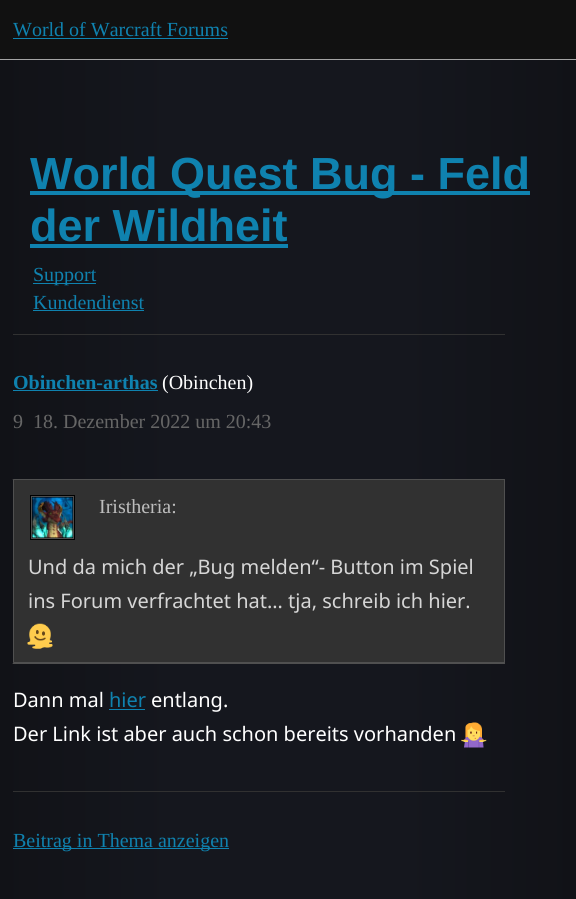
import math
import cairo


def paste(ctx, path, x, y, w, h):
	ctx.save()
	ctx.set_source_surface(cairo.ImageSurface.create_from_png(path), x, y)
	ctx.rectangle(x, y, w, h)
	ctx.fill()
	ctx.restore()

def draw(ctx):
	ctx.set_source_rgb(1, 1, 1)
	ctx.paint()
	gradient = cairo.LinearGradient(0, 593, 576, 593)
	gradient.add_color_stop_rgba(0, 0.067, 0.071, 0.09, 1)
	gradient.add_color_stop_rgba(0.3, 0.082, 0.09, 0.118, 1)
	gradient.add_color_stop_rgba(0.7, 0.082, 0.09, 0.118, 1)
	gradient.add_color_stop_rgba(1, 0.067, 0.071, 0.09, 1)
	ctx.set_source(gradient)
	ctx.rectangle(0, 60, 576, 839)
	ctx.fill()
	ctx.set_source_rgb(0.067, 0.067, 0.067)
	ctx.rectangle(0, 0, 576, 59)
	ctx.fill()
	ctx.set_source_rgb(0.643, 0.643, 0.643)
	ctx.rectangle(0, 59, 576, 1)
	ctx.fill()
	ctx.select_font_face('Liberation Serif')
	ctx.set_font_size(20)
	ctx.set_source_rgb(0.059, 0.51, 0.686)
	ctx.move_to(13, 36)
	ctx.show_text('World of Warcraft Forums')
	ctx.rectangle(13, 38, 215, 1)
	ctx.fill()
	ctx.rectangle(30, 191, 500, 4)
	ctx.fill()
	ctx.select_font_face('Liberation Sans', cairo.FONT_SLANT_NORMAL, cairo.FONT_WEIGHT_BOLD)
	ctx.set_font_size(45)
	ctx.move_to(30, 189)
	ctx.show_text('World Quest Bug - Feld')
	ctx.move_to(30, 241)
	ctx.show_text('der Wildheit')
	ctx.rectangle(30, 244, 258, 4)
	ctx.fill()
	ctx.rectangle(33, 283, 63, 1)
	ctx.fill()
	ctx.select_font_face('Liberation Serif')
	ctx.set_font_size(20)
	ctx.move_to(33, 281)
	ctx.show_text('Support')
	ctx.move_to(33, 309)
	ctx.show_text('Kundendienst')
	ctx.rectangle(33, 310, 111, 1)
	ctx.fill()
	ctx.set_source_rgb(0.192, 0.192, 0.192)
	ctx.rectangle(13, 334, 492, 1)
	ctx.fill()
	ctx.select_font_face('Liberation Serif', cairo.FONT_SLANT_NORMAL, cairo.FONT_WEIGHT_BOLD)
	ctx.set_source_rgb(0.059, 0.51, 0.686)
	ctx.move_to(13, 389)
	ctx.show_text('Obinchen-arthas')
	ctx.rectangle(13, 390, 145, 1)
	ctx.fill()
	ctx.select_font_face('Liberation Serif')
	ctx.set_source_rgb(1, 1, 1)
	ctx.move_to(162, 389)
	ctx.show_text('(Obinchen)')
	ctx.set_source_rgb(0.4, 0.4, 0.4)
	ctx.move_to(13, 428)
	ctx.show_text('9')
	ctx.move_to(33, 428)
	ctx.show_text('18. Dezember 2022 um 20:43')
	ctx.set_source_rgb(0.192, 0.192, 0.192)
	ctx.rectangle(13, 479, 492, 185)
	ctx.fill()
	ctx.set_source_rgb(0.314, 0.314, 0.314)
	ctx.new_path()
	ctx.move_to(12, 479)
	ctx.line_to(505, 479)
	ctx.line_to(504, 480)
	ctx.line_to(14, 480)
	ctx.close_path()
	ctx.fill()
	ctx.set_source_rgba(1, 1, 1, 0.15)
	ctx.new_path()
	ctx.move_to(505, 479)
	ctx.line_to(505, 540)
	ctx.line_to(504, 540)
	ctx.line_to(504, 480)
	ctx.close_path()
	ctx.fill()
	ctx.save()
	ctx.rectangle(13, 459, 492, 292)
	ctx.clip()
	ctx.set_source_rgb(0.314, 0.314, 0.314)
	ctx.new_path()
	ctx.move_to(12, 540)
	ctx.line_to(12, 479)
	ctx.line_to(14, 480)
	ctx.line_to(14, 540)
	ctx.close_path()
	ctx.fill()
	ctx.restore()
	ctx.rectangle(31.5, 496.5, 42, 42)
	ctx.set_source_rgb(0, 0, 0)
	ctx.set_line_width(3)
	ctx.stroke()
	ctx.rectangle(31.5, 496.5, 42, 42)
	ctx.set_source_rgb(0.302, 0.302, 0.302)
	ctx.set_line_width(1)
	ctx.stroke()
	paste(ctx, 'media/1.png', 32, 497, 41, 41)
	ctx.set_source_rgb(0.741, 0.741, 0.741)
	ctx.move_to(99, 513)
	ctx.show_text('Iristheria:')
	ctx.set_source_rgb(0.314, 0.314, 0.314)
	ctx.new_path()
	ctx.move_to(505, 540)
	ctx.line_to(505, 664)
	ctx.line_to(504, 662)
	ctx.line_to(504, 540)
	ctx.close_path()
	ctx.fill()
	ctx.set_source_rgba(1, 1, 1, 0.15)
	ctx.new_path()
	ctx.move_to(505, 664)
	ctx.line_to(12, 664)
	ctx.line_to(14, 662)
	ctx.line_to(504, 662)
	ctx.close_path()
	ctx.fill()
	ctx.save()
	ctx.rectangle(13, 459, 492, 292)
	ctx.clip()
	ctx.set_source_rgb(0.314, 0.314, 0.314)
	ctx.new_path()
	ctx.move_to(12, 664)
	ctx.line_to(12, 540)
	ctx.line_to(14, 540)
	ctx.line_to(14, 662)
	ctx.close_path()
	ctx.fill()
	ctx.restore()
	ctx.select_font_face('Noto Sans')
	ctx.set_source_rgb(0.839, 0.839, 0.839)
	ctx.move_to(28, 574)
	ctx.show_text('Und da mich der „Bug melden“- Button im Spiel')
	ctx.move_to(28, 608)
	ctx.show_text('ins Forum verfrachtet hat… tja, schreib ich hier.')
	paste(ctx, 'media/2.png', 27, 623, 26, 26)
	ctx.set_source_rgb(1, 1, 1)
	ctx.move_to(13, 707)
	ctx.show_text('Dann mal')
	ctx.set_source_rgb(0.059, 0.51, 0.686)
	ctx.move_to(109, 707)
	ctx.show_text('hier')
	ctx.rectangle(109, 709, 36, 1)
	ctx.fill()
	ctx.set_source_rgb(1, 1, 1)
	ctx.move_to(151, 707)
	ctx.show_text('entlang.')
	ctx.move_to(13, 741)
	ctx.show_text('Der Link ist aber auch schon bereits vorhanden')
	paste(ctx, 'media/3.png', 461, 722, 26, 26)
	ctx.set_source_rgb(0.192, 0.192, 0.192)
	ctx.rectangle(13, 791, 492, 1)
	ctx.fill()
	ctx.set_source_rgb(0.059, 0.51, 0.686)
	ctx.rectangle(13, 848, 216, 1)
	ctx.fill()
	ctx.select_font_face('Liberation Serif')
	ctx.move_to(13, 847)
	ctx.show_text('Beitrag in Thema anzeigen')


surface = cairo.ImageSurface(cairo.FORMAT_RGB24, 576, 899)
ctx = cairo.Context(surface)
options = cairo.FontOptions()
options.set_hint_metrics(cairo.HINT_METRICS_OFF)
options.set_hint_style(cairo.HINT_STYLE_NONE)
ctx.set_font_options(options)
ctx.set_miter_limit(4)
draw(ctx)
surface.write_to_png('image.png')
